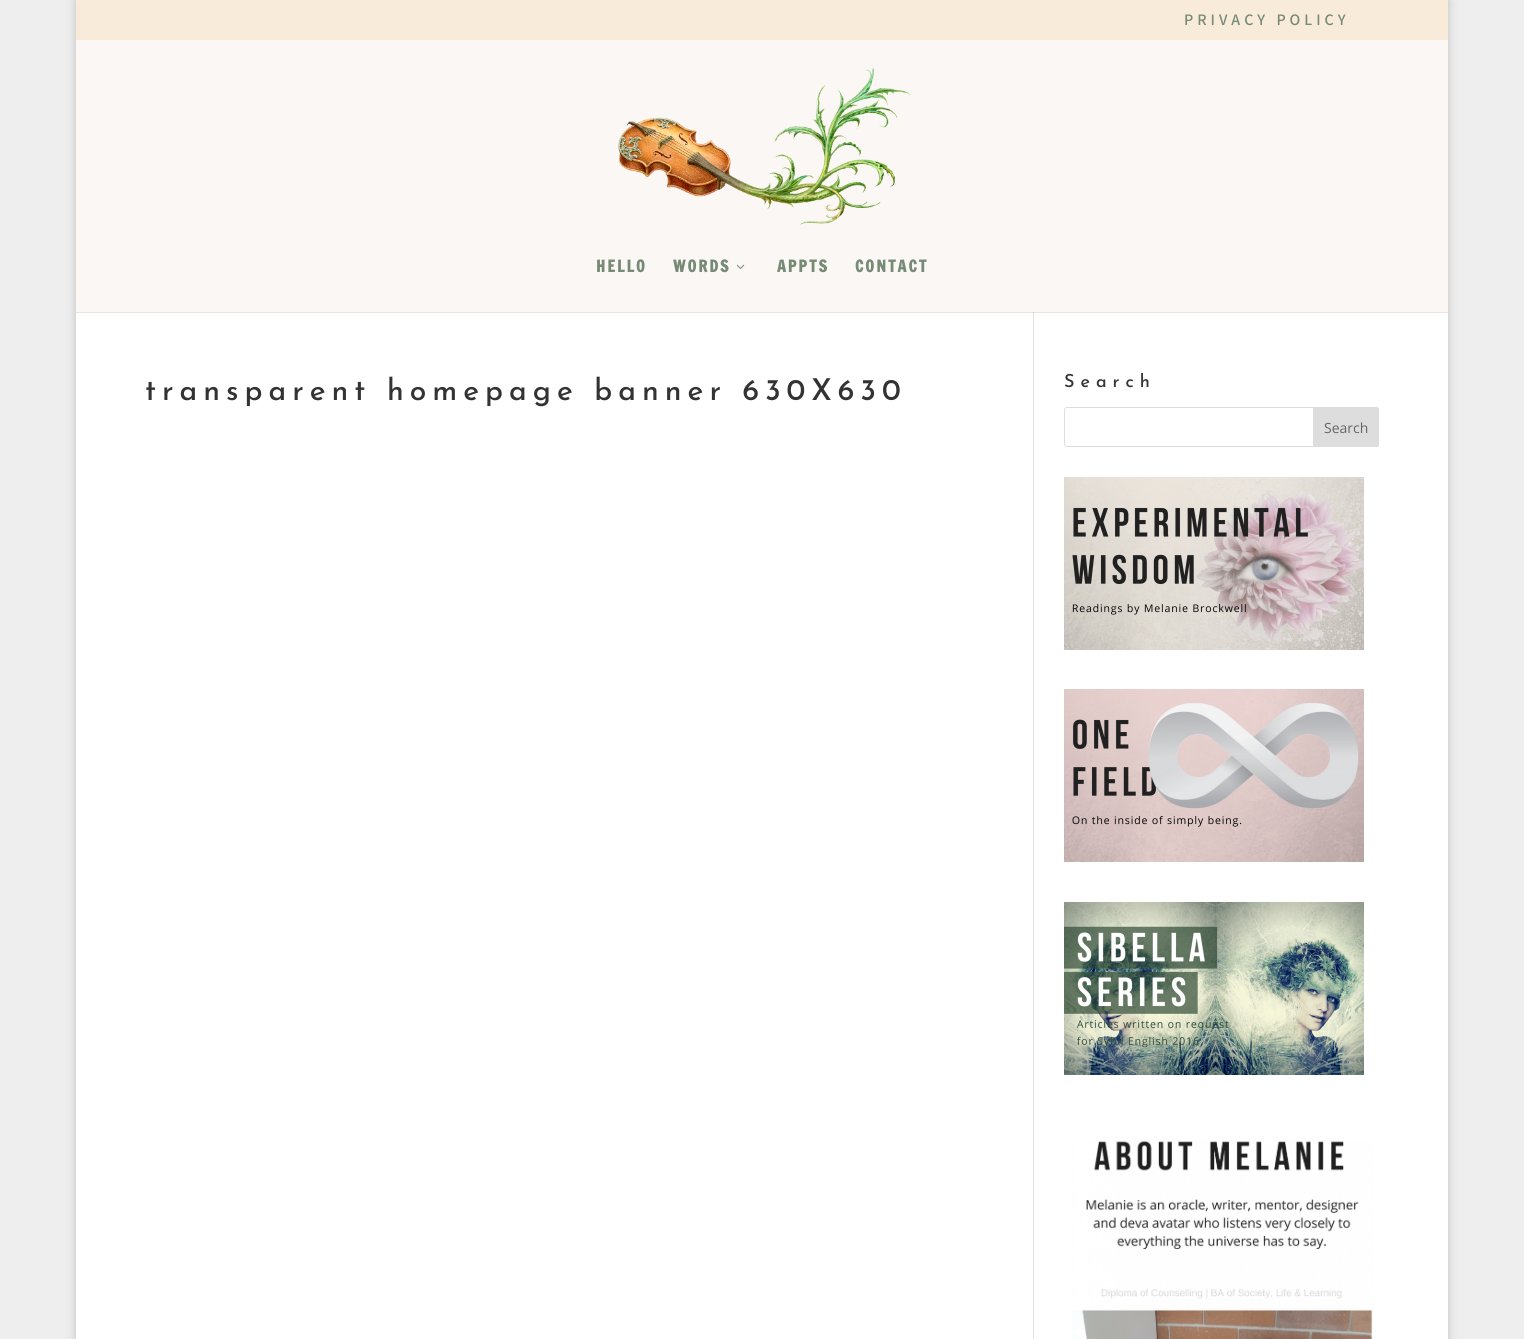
import math
import cairo


def write_spaced(ctx, x, y, s, letter, word):
	ctx.move_to(x, y)
	for ch in s:
		ctx.show_text(ch)
		ctx.rel_move_to(letter + word * (ch == ' '), 0)

def round_path(ctx, x, y, w, h, r):
	ctx.new_sub_path()
	for i, (u, v) in enumerate([(x + w - r, y + h - r), (x + r, y + h - r), (x + r, y + r), (x + w - r, y + r)]):
		ctx.arc(u, v, r, i * math.pi / 2, (i + 1) * math.pi / 2)
	ctx.close_path()

def blur_box(ctx, x, y, w, h, r, blur, alpha):
	ctx.push_group_with_content(cairo.CONTENT_ALPHA)
	ctx.set_operator(cairo.OPERATOR_SOURCE)
	for i in range(15, -16, -2):
		e = blur * i / 6
		if min(w, h) + 2 * e > 0:
			ctx.set_source_rgba(0, 0, 0, alpha * math.erfc((i - 1) / 8.5) / 2)
			round_path(ctx, x - e, y - e, w + 2 * e, h + 2 * e, max(0, min(r + e + blur * .6, min(w, h) / 2 + e)))
			ctx.fill()
	ctx.mask(ctx.pop_group())

def paste(ctx, path, x, y, w, h):
	ctx.save()
	ctx.set_source_surface(cairo.ImageSurface.create_from_png(path), x, y)
	ctx.rectangle(x, y, w, h)
	ctx.fill()
	ctx.restore()

def draw(ctx):
	ctx.set_source_rgb(0.933, 0.933, 0.933)
	ctx.paint()
	ctx.set_source_rgb(0, 0, 0)
	blur_box(ctx, 76, 0, 1372, 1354, 0, 5, 0.2)
	ctx.set_source_rgb(0.976, 0.918, 0.851)
	ctx.rectangle(76, 0, 1372, 40)
	ctx.fill()
	ctx.select_font_face('Assistant SemiBold')
	ctx.set_font_size(16)
	ctx.set_source_rgb(0.467, 0.537, 0.467)
	write_spaced(ctx, 1184, 25, 'PRIVACY POLICY', 4, 0)
	ctx.set_source_rgb(0.98, 0.965, 0.957)
	ctx.rectangle(76, 40, 1372, 272)
	ctx.fill()
	paste(ctx, 'media/1.png', 618, 67, 293, 158)
	ctx.select_font_face('Francois One', cairo.FONT_SLANT_NORMAL, cairo.FONT_WEIGHT_BOLD)
	ctx.set_source_rgb(0.467, 0.537, 0.467)
	write_spaced(ctx, 596, 272, 'HELLO', 2, 0)
	write_spaced(ctx, 673, 272, 'WORDS', 2, 0)
	paste(ctx, 'media/2.png', 736, 264, 9, 5)
	write_spaced(ctx, 777, 272, 'APPTS', 2, 0)
	write_spaced(ctx, 855, 272, 'CONTACT', 2, 0)
	ctx.set_source_rgb(1, 1, 1)
	ctx.rectangle(76, 313, 1372, 1026)
	ctx.fill()
	ctx.set_source_rgb(0.902, 0.902, 0.902)
	ctx.rectangle(76, 312, 1372, 1)
	ctx.fill()
	ctx.set_source_rgb(0.886, 0.886, 0.886)
	ctx.rectangle(1033, 312, 1, 1027)
	ctx.fill()
	ctx.set_source_rgb(0.796, 0.796, 0.796)
	ctx.rectangle(1033, 312, 1, 1)
	ctx.fill()
	ctx.select_font_face('Josefin Sans Medium')
	ctx.set_font_size(30)
	ctx.set_source_rgb(0.2, 0.2, 0.2)
	write_spaced(ctx, 145, 400, 'transparent homepage banner 630X630', 6, 0)
	ctx.set_font_size(18)
	write_spaced(ctx, 1064, 387, 'Search', 6, 0)
	round_path(ctx, 1064.5, 407.5, 314, 39, 2.5)
	ctx.set_source_rgb(0.867, 0.867, 0.867)
	ctx.set_line_width(1)
	ctx.stroke()
	ctx.new_path()
	ctx.move_to(1313.5, 407.5)
	ctx.line_to(1376, 407.5)
	ctx.curve_to(1377.5, 407.5, 1378.5, 408.5, 1378.5, 410)
	ctx.line_to(1378.5, 444)
	ctx.curve_to(1378.5, 445.5, 1377.5, 446.5, 1376, 446.5)
	ctx.line_to(1313.5, 446.5)
	ctx.close_path()
	ctx.fill_preserve()
	ctx.stroke()
	ctx.select_font_face('Open Sans')
	ctx.set_font_size(14)
	ctx.set_source_rgb(0.4, 0.4, 0.4)
	ctx.move_to(1324, 433)
	ctx.show_text('Search')
	paste(ctx, 'media/3.png', 1064, 477, 300, 173)
	paste(ctx, 'media/4.png', 1064, 689, 300, 173)
	paste(ctx, 'media/5.png', 1064, 902, 300, 173)
	paste(ctx, 'media/6.png', 1072, 1140, 301, 199)


surface = cairo.ImageSurface(cairo.FORMAT_RGB24, 1524, 1339)
ctx = cairo.Context(surface)
options = cairo.FontOptions()
options.set_hint_metrics(cairo.HINT_METRICS_OFF)
options.set_hint_style(cairo.HINT_STYLE_NONE)
ctx.set_font_options(options)
ctx.set_miter_limit(4)
draw(ctx)
surface.write_to_png('image.png')
